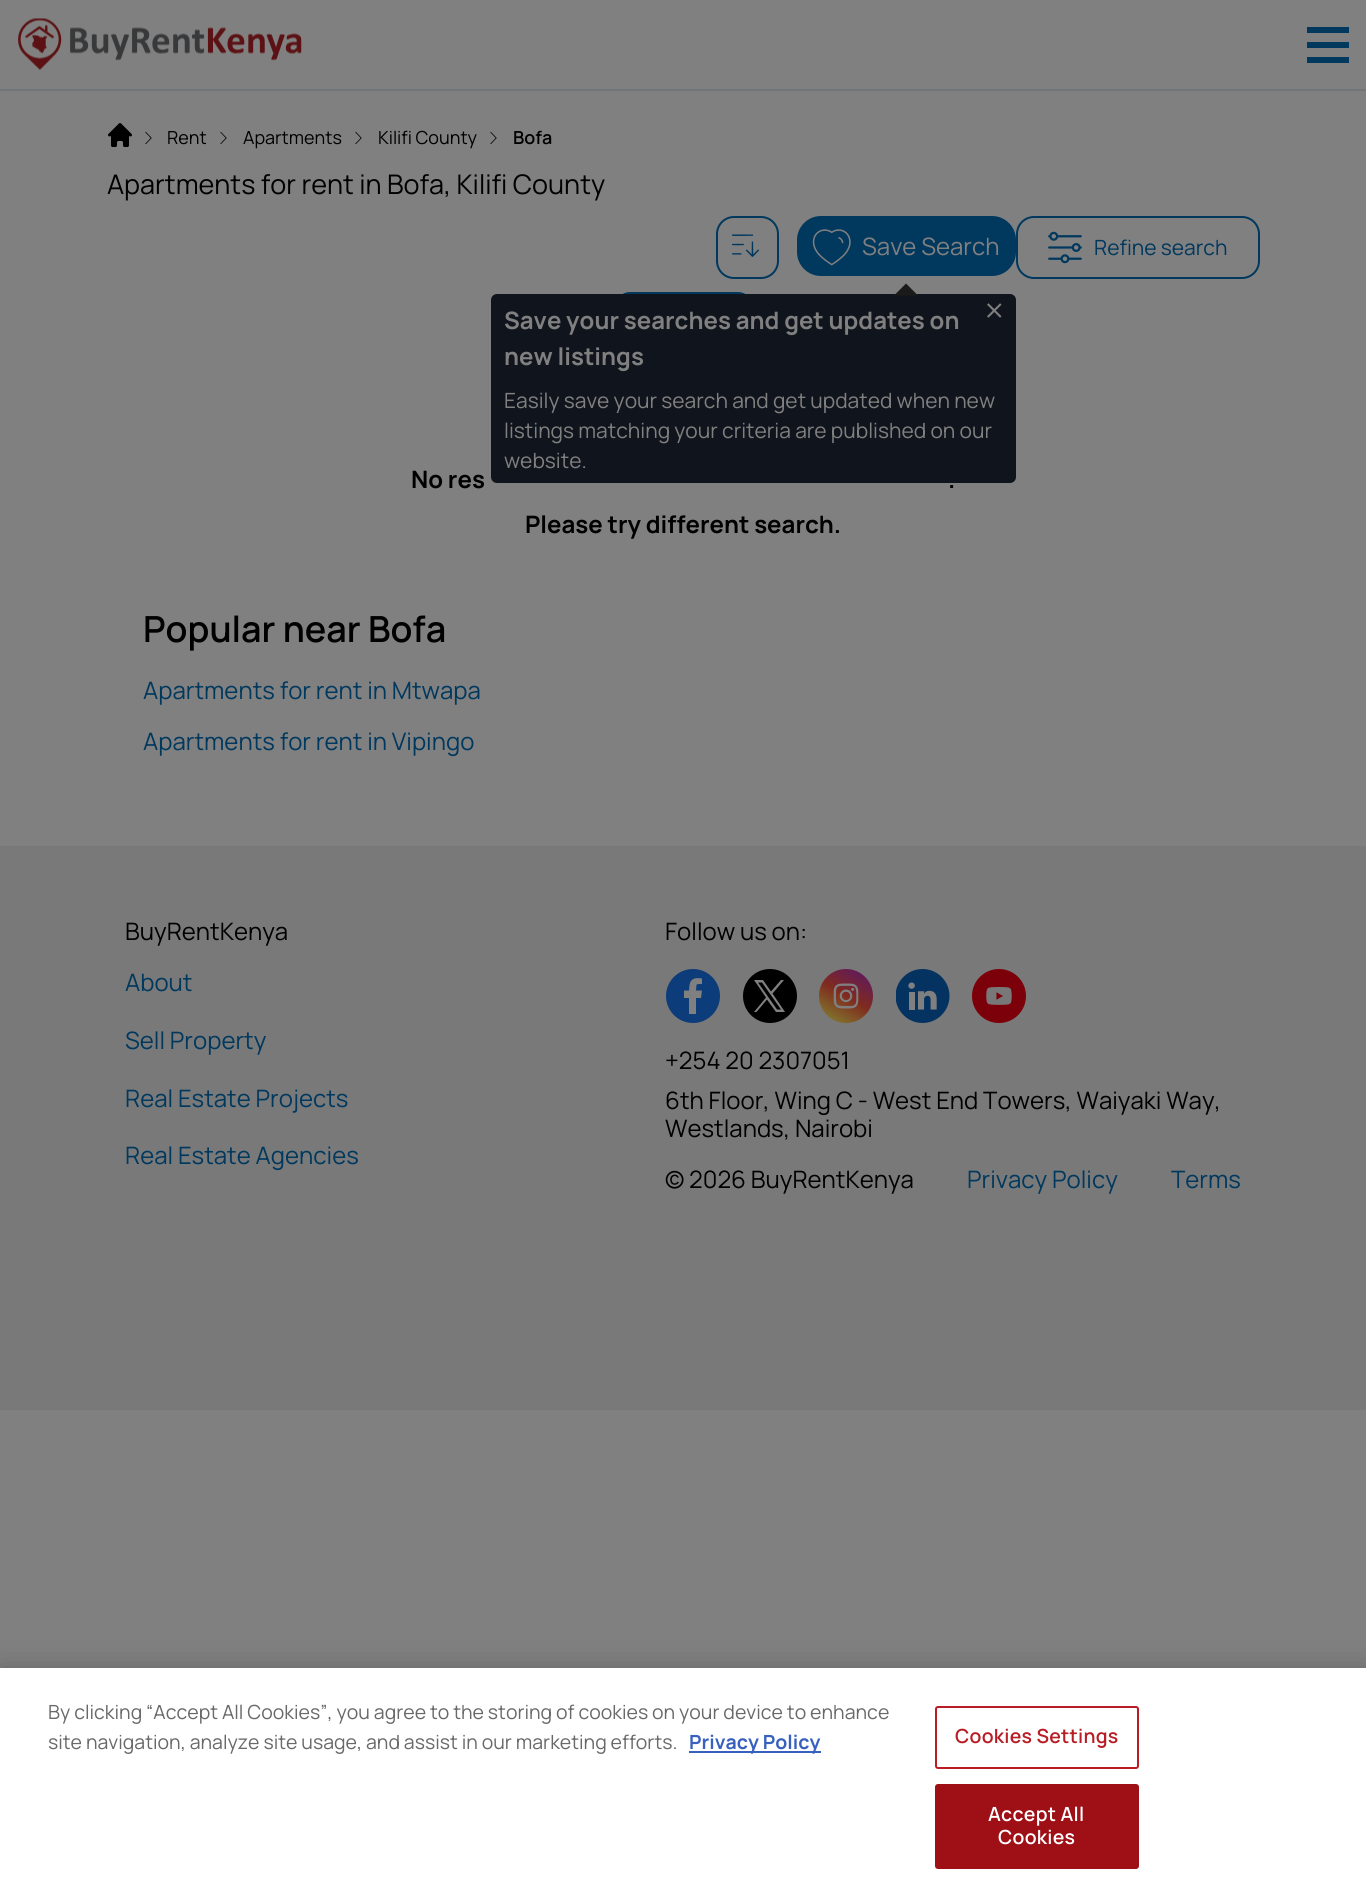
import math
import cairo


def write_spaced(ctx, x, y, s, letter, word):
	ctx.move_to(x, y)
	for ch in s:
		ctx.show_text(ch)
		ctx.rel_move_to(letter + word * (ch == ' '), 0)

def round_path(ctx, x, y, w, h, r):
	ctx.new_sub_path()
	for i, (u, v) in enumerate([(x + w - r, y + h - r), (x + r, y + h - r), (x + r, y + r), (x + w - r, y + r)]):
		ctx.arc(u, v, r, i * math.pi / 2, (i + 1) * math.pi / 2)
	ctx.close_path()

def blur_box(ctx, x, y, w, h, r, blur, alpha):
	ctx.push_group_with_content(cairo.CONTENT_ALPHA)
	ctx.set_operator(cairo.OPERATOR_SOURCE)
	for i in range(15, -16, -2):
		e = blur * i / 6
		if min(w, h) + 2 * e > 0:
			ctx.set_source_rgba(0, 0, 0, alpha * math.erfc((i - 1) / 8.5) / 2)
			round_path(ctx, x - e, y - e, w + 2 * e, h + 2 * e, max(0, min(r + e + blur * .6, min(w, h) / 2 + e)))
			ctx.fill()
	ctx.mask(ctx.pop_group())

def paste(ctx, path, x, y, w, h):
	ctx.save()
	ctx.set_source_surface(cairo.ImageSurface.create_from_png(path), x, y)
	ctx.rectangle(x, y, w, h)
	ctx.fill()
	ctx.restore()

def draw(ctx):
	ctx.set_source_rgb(0.502, 0.502, 0.502)
	ctx.paint()
	ctx.set_source_rgb(0.443, 0.455, 0.471)
	ctx.rectangle(0, 89, 1366, 2)
	ctx.fill()
	paste(ctx, 'media/1.png', 18, 18, 284, 53)
	ctx.save()
	ctx.rectangle(1307, 27, 42, 36)
	ctx.clip()
	ctx.set_source_rgb(0, 0.22, 0.369)
	ctx.new_path()
	ctx.move_to(1306, 63)
	ctx.line_to(1366, 63)
	ctx.line_to(1366, 57)
	ctx.line_to(1306, 57)
	ctx.close_path()
	ctx.move_to(1306, 48)
	ctx.line_to(1366, 48)
	ctx.line_to(1366, 42)
	ctx.line_to(1306, 42)
	ctx.close_path()
	ctx.move_to(1306, 27)
	ctx.line_to(1306, 33)
	ctx.line_to(1366, 33)
	ctx.line_to(1366, 27)
	ctx.close_path()
	ctx.fill()
	ctx.restore()
	paste(ctx, 'media/2.png', 108, 123, 24, 24)
	paste(ctx, 'media/3.png', 145, 131, 7, 14)
	ctx.select_font_face('Manrope')
	ctx.set_font_size(18)
	ctx.set_source_rgb(0, 0, 0)
	ctx.move_to(167, 144)
	ctx.show_text('Rent')
	paste(ctx, 'media/3.png', 220, 131, 7, 14)
	ctx.move_to(243, 144)
	ctx.show_text('Apartments')
	paste(ctx, 'media/3.png', 355, 131, 7, 14)
	ctx.move_to(378, 144)
	ctx.show_text('Kilifi County')
	paste(ctx, 'media/3.png', 490, 131, 7, 14)
	ctx.select_font_face('Manrope SemiBold')
	ctx.move_to(513, 144)
	ctx.show_text('Bofa')
	ctx.select_font_face('Manrope')
	ctx.set_font_size(27)
	ctx.move_to(107, 194)
	ctx.show_text('Apartments for rent in Bofa, Kilifi County')
	round_path(ctx, 717, 217, 61, 61, 17)
	ctx.set_source_rgb(0, 0.22, 0.369)
	ctx.stroke()
	paste(ctx, 'media/4.png', 732, 234, 27, 23)
	round_path(ctx, 797, 216, 219, 60, 24)
	ctx.fill()
	paste(ctx, 'media/5.png', 812, 229, 39, 37)
	ctx.set_font_size(24)
	ctx.set_source_rgb(0.502, 0.502, 0.502)
	ctx.move_to(862, 255)
	ctx.show_text('Save Search')
	ctx.set_source_rgb(0, 0.22, 0.369)
	ctx.new_path()
	ctx.move_to(738, 292)
	ctx.line_to(630, 292)
	ctx.curve_to(622, 292, 616, 298, 616, 306)
	ctx.line_to(616, 428)
	ctx.line_to(643, 401)
	ctx.line_to(738, 401)
	ctx.curve_to(746, 401, 752, 395, 752, 387)
	ctx.line_to(752, 306)
	ctx.curve_to(752, 298, 746, 292, 738, 292)
	ctx.close_path()
	ctx.move_to(691, 374)
	ctx.line_to(677, 374)
	ctx.line_to(677, 360)
	ctx.line_to(691, 360)
	ctx.close_path()
	ctx.move_to(691, 346)
	ctx.line_to(677, 346)
	ctx.line_to(677, 319)
	ctx.line_to(691, 319)
	ctx.close_path()
	ctx.fill()
	ctx.set_source_rgb(0.063, 0.082, 0.11)
	round_path(ctx, 491, 294, 525, 189, 6)
	ctx.fill()
	ctx.set_source_rgb(0.102, 0.102, 0.102)
	ctx.new_path()
	ctx.move_to(918, 295.5)
	ctx.line_to(894, 295.5)
	ctx.line_to(906, 283.5)
	ctx.close_path()
	ctx.fill()
	ctx.select_font_face('Manrope', cairo.FONT_SLANT_NORMAL, cairo.FONT_WEIGHT_BOLD)
	ctx.set_source_rgb(0.502, 0.502, 0.502)
	ctx.move_to(504, 329)
	ctx.show_text('Save your searches and get updates on')
	ctx.move_to(504, 365)
	ctx.show_text('new listings')
	paste(ctx, 'media/6.png', 987, 303, 15, 15)
	ctx.select_font_face('Manrope')
	ctx.set_font_size(21)
	for x, y, s in [
		(504, 408, 'Easily save your search and get updated when new'),
		(504, 438, 'listings matching your criteria are published on our'),
		(504, 468, 'website.'),
	]:
		ctx.move_to(x, y)
		ctx.show_text(s)
	round_path(ctx, 1017, 217, 242, 61, 17)
	ctx.set_source_rgb(0, 0.22, 0.369)
	ctx.stroke()
	paste(ctx, 'media/7.png', 1048, 231, 34, 33)
	ctx.move_to(1094, 255)
	ctx.show_text('Refine search')
	ctx.select_font_face('Manrope', cairo.FONT_SLANT_NORMAL, cairo.FONT_WEIGHT_BOLD)
	ctx.set_font_size(24)
	ctx.set_source_rgb(0, 0, 0)
	for x, y, s in [
		(411, 488, 'No res'),
		(948, 488, '.'),
		(525, 533, 'Please try different search.'),
	]:
		ctx.move_to(x, y)
		ctx.show_text(s)
	ctx.select_font_face('Manrope SemiBold')
	ctx.set_font_size(36)
	ctx.move_to(143, 642)
	ctx.show_text('Popular near Bofa')
	ctx.select_font_face('Manrope')
	ctx.set_font_size(24)
	ctx.set_source_rgb(0, 0.22, 0.369)
	ctx.move_to(143, 699)
	ctx.show_text('Apartments for rent in Mtwapa')
	ctx.move_to(143, 750)
	ctx.show_text('Apartments for rent in Vipingo')
	ctx.set_source_rgb(0.475, 0.475, 0.475)
	ctx.rectangle(0, 846, 1366, 564)
	ctx.fill()
	ctx.set_source_rgb(0, 0, 0)
	ctx.move_to(125, 940)
	ctx.show_text('BuyRentKenya')
	ctx.set_source_rgb(0, 0.22, 0.369)
	for x, y, s in [
		(125, 991, 'About'),
		(125, 1049, 'Sell Property'),
		(125, 1107, 'Real Estate Projects'),
		(125, 1164, 'Real Estate Agencies'),
	]:
		ctx.move_to(x, y)
		ctx.show_text(s)
	ctx.set_source_rgb(0, 0, 0)
	ctx.move_to(665, 940)
	ctx.show_text('Follow us on:')
	ctx.set_source_rgb(0.047, 0.235, 0.475)
	ctx.new_path()
	ctx.arc(693, 996, 27, 0, 2 * math.pi)
	ctx.fill()
	ctx.set_source_rgb(0.502, 0.502, 0.502)
	ctx.set_fill_rule(cairo.FILL_RULE_EVEN_ODD)
	ctx.new_path()
	ctx.move_to(696, 990.5)
	ctx.line_to(702, 990.5)
	ctx.line_to(701, 998)
	ctx.line_to(696, 998)
	ctx.line_to(696, 1014)
	ctx.line_to(689, 1014)
	ctx.line_to(689, 998)
	ctx.line_to(684, 998)
	ctx.line_to(684, 990.5)
	ctx.line_to(689, 990.5)
	ctx.line_to(689.5, 985)
	ctx.curve_to(690.5, 978, 696, 977.5, 702, 978.5)
	ctx.line_to(702, 984)
	ctx.curve_to(694.5, 984, 697, 984, 696, 990.5)
	ctx.fill()
	ctx.set_source_rgb(0, 0, 0)
	ctx.arc(770, 996, 27, 0, 2 * math.pi)
	ctx.fill()
	ctx.set_source_rgb(0.502, 0.502, 0.502)
	ctx.set_fill_rule(cairo.FILL_RULE_WINDING)
	ctx.new_path()
	ctx.move_to(754, 980)
	ctx.line_to(766, 997.5)
	ctx.line_to(754, 1012)
	ctx.line_to(756.5, 1012)
	ctx.line_to(767, 999.5)
	ctx.line_to(776, 1012)
	ctx.line_to(785, 1012)
	ctx.line_to(772.5, 993.5)
	ctx.line_to(784, 980)
	ctx.line_to(781, 980)
	ctx.line_to(771, 991.5)
	ctx.line_to(763, 980)
	ctx.close_path()
	ctx.move_to(758, 982.5)
	ctx.line_to(762, 982.5)
	ctx.line_to(781, 1009.5)
	ctx.line_to(777, 1009.5)
	ctx.close_path()
	ctx.fill()
	paste(ctx, 'media/8.png', 819, 969, 54, 54)
	paste(ctx, 'media/9.png', 896, 969, 54, 54)
	paste(ctx, 'media/10.png', 972, 969, 54, 54)
	ctx.set_source_rgb(0, 0, 0)
	for x, y, s in [
		(665, 1069, '+254 20 2307051'),
		(665, 1109, '6th Floor, Wing C - West End Towers, Waiyaki Way,'),
		(665, 1137, 'Westlands, Nairobi'),
		(665, 1188, '© 2026 BuyRentKenya'),
	]:
		ctx.move_to(x, y)
		ctx.show_text(s)
	ctx.set_source_rgb(0, 0.22, 0.369)
	ctx.move_to(967, 1188)
	ctx.show_text('Privacy Policy')
	ctx.move_to(1171, 1188)
	ctx.show_text('Terms')
	ctx.set_source_rgb(0, 0, 0)
	blur_box(ctx, 0, 1668, 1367, 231, 0, 13.5, 0.2)
	ctx.set_source_rgb(1, 1, 1)
	ctx.rectangle(0, 1668, 1366, 230)
	ctx.fill()
	ctx.set_font_size(19.5)
	ctx.set_source_rgb(0.412, 0.412, 0.412)
	ctx.move_to(48, 1719)
	ctx.show_text('By clicking “Accept All Cookies”, you agree to the storing of cookies on your device to enhance')
	ctx.move_to(48, 1749)
	ctx.show_text('site navigation, analyze site usage, and assist in our marketing efforts.')
	ctx.set_source_rgb(0.22, 0.376, 0.745)
	ctx.rectangle(689, 1751, 132, 2)
	ctx.fill()
	ctx.select_font_face('Manrope', cairo.FONT_SLANT_NORMAL, cairo.FONT_WEIGHT_BOLD)
	ctx.move_to(689, 1749)
	ctx.show_text('Privacy Policy')
	round_path(ctx, 936, 1707, 202, 61, 2)
	ctx.set_source_rgb(0.722, 0.11, 0.141)
	ctx.stroke()
	ctx.select_font_face('Manrope SemiBold')
	write_spaced(ctx, 955, 1743, 'Cookies Settings', 0.25, 0)
	ctx.set_source_rgb(0.62, 0.059, 0.086)
	round_path(ctx, 936, 1785, 202, 83, 2)
	ctx.fill_preserve()
	ctx.stroke()
	ctx.set_source_rgb(1, 1, 1)
	write_spaced(ctx, 988, 1821, 'Accept All', 0.25, 0)
	write_spaced(ctx, 998, 1844, 'Cookies', 0.25, 0)


surface = cairo.ImageSurface(cairo.FORMAT_RGB24, 1366, 1898)
ctx = cairo.Context(surface)
options = cairo.FontOptions()
options.set_hint_metrics(cairo.HINT_METRICS_OFF)
options.set_hint_style(cairo.HINT_STYLE_NONE)
ctx.set_font_options(options)
ctx.set_miter_limit(4)
draw(ctx)
surface.write_to_png('image.png')
